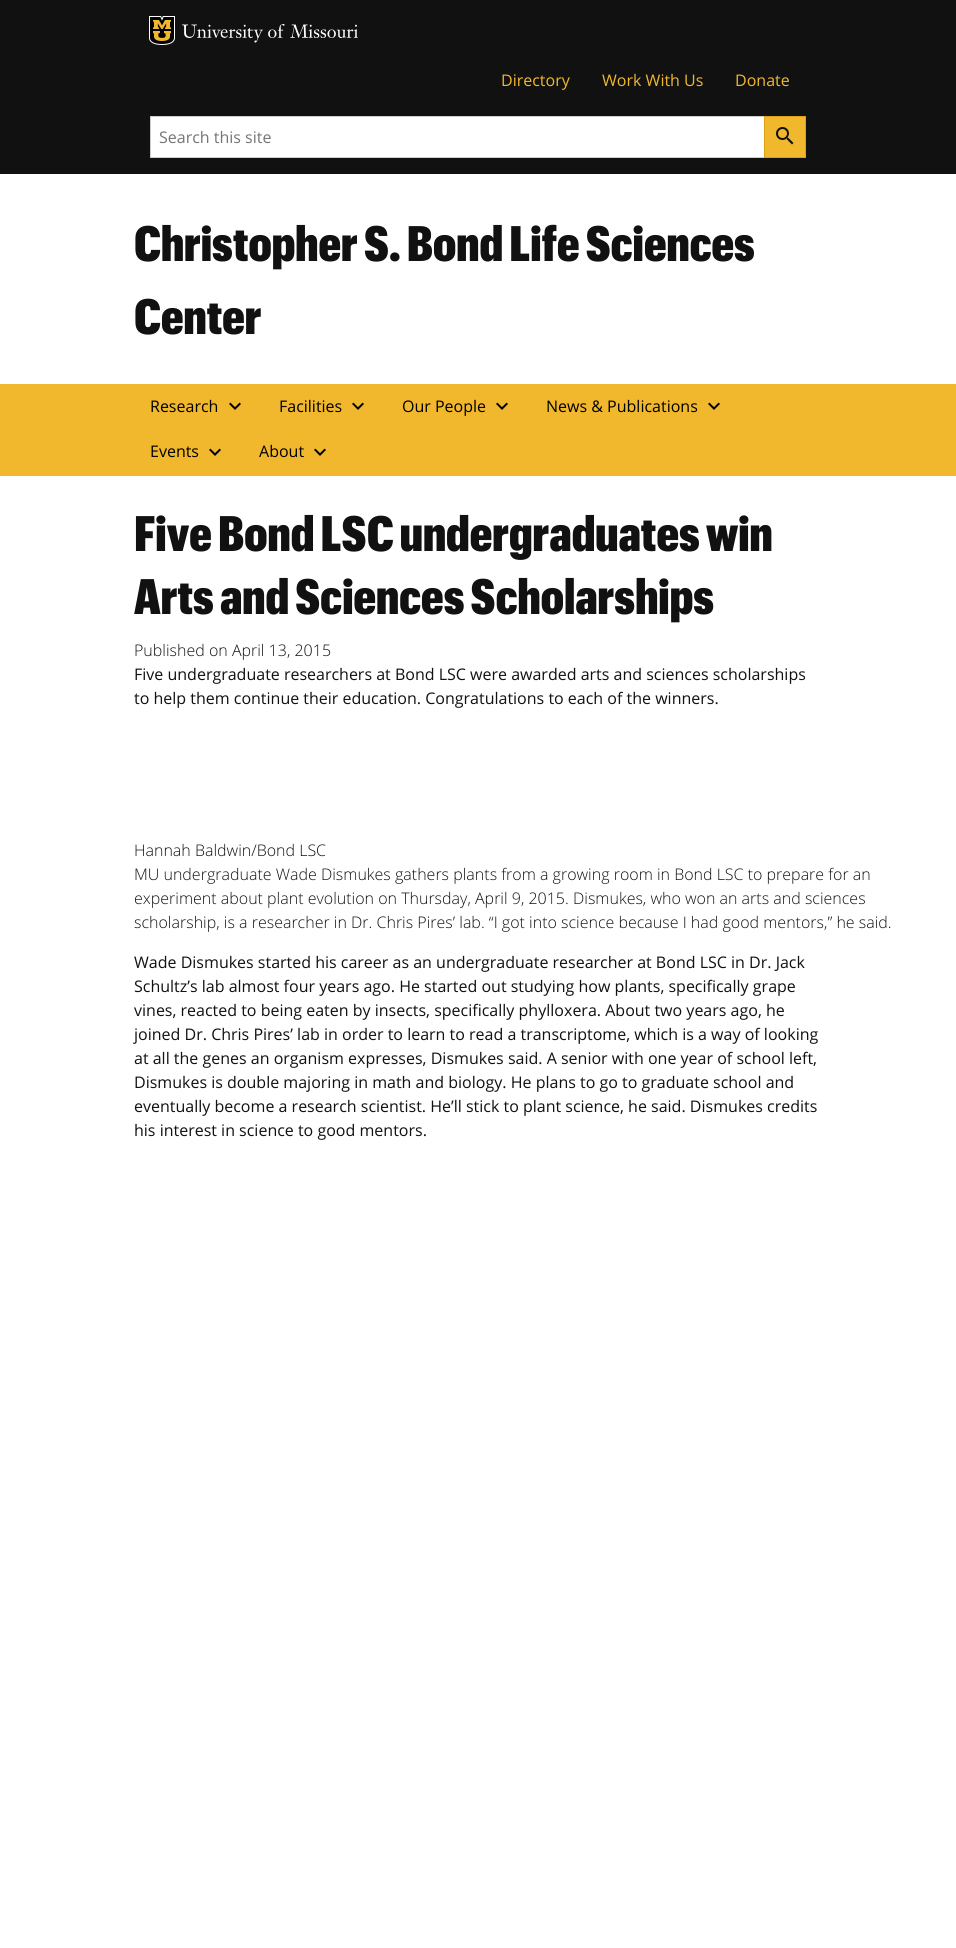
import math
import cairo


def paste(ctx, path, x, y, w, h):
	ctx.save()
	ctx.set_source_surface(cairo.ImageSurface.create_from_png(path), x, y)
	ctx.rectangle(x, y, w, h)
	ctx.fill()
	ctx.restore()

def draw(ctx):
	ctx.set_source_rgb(1, 1, 1)
	ctx.paint()
	ctx.set_source_rgb(0.067, 0.067, 0.067)
	ctx.rectangle(0, 0, 956, 174)
	ctx.fill()
	paste(ctx, 'media/1.png', 149, 16, 26, 29)
	paste(ctx, 'media/2.png', 182, 24, 176, 19)
	ctx.select_font_face('Open Sans')
	ctx.set_font_size(16)
	ctx.set_source_rgb(0.945, 0.722, 0.176)
	for x, y, s in [
		(501, 86, 'Directory'),
		(602, 86, 'Work With Us'),
		(735, 86, 'Donate'),
	]:
		ctx.move_to(x, y)
		ctx.show_text(s)
	ctx.set_source_rgb(1, 1, 1)
	ctx.rectangle(150.5, 116.5, 614, 41)
	ctx.fill_preserve()
	ctx.set_source_rgb(0.8, 0.8, 0.8)
	ctx.set_line_width(1)
	ctx.stroke()
	ctx.set_source_rgb(0.459, 0.459, 0.459)
	ctx.move_to(159, 143)
	ctx.show_text('Search this site')
	ctx.set_source_rgb(0.945, 0.722, 0.176)
	ctx.rectangle(764.5, 116.5, 41, 41)
	ctx.fill_preserve()
	ctx.set_source_rgb(0.863, 0.631, 0.059)
	ctx.stroke()
	paste(ctx, 'media/3.png', 776, 127, 18, 18)
	ctx.select_font_face('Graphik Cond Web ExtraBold')
	ctx.set_font_size(48.8)
	ctx.set_source_rgb(0.067, 0.067, 0.067)
	ctx.move_to(134, 261)
	ctx.show_text('Christopher S. Bond Life Sciences')
	ctx.move_to(134, 334)
	ctx.show_text('Center')
	ctx.set_source_rgb(0.945, 0.722, 0.176)
	ctx.rectangle(0, 384, 956, 92)
	ctx.fill()
	ctx.select_font_face('Open Sans')
	ctx.set_font_size(16)
	ctx.set_source_rgb(0, 0, 0)
	ctx.move_to(150, 412)
	ctx.show_text('Research')
	paste(ctx, 'media/4.png', 229, 402, 12, 8)
	ctx.move_to(279, 412)
	ctx.show_text('Facilities')
	paste(ctx, 'media/4.png', 352, 402, 12, 8)
	ctx.move_to(402, 412)
	ctx.show_text('Our People')
	paste(ctx, 'media/4.png', 496, 402, 12, 8)
	ctx.move_to(546, 412)
	ctx.show_text('News & Publications')
	paste(ctx, 'media/4.png', 708, 402, 12, 8)
	ctx.move_to(150, 457)
	ctx.show_text('Events')
	paste(ctx, 'media/4.png', 209, 448, 12, 8)
	ctx.move_to(259, 457)
	ctx.show_text('About')
	paste(ctx, 'media/4.png', 314, 448, 12, 8)
	ctx.select_font_face('Graphik Cond Web ExtraBold')
	ctx.set_font_size(48.8)
	ctx.set_source_rgb(0.067, 0.067, 0.067)
	ctx.move_to(134, 551)
	ctx.show_text('Five Bond LSC undergraduates win')
	ctx.move_to(134, 614)
	ctx.show_text('Arts and Sciences Scholarships')
	ctx.select_font_face('Open Sans Light')
	ctx.set_font_size(16)
	ctx.move_to(134, 656)
	ctx.show_text('Published on April 13, 2015')
	ctx.select_font_face('Open Sans')
	ctx.move_to(134, 680)
	ctx.show_text('Five undergraduate researchers at Bond LSC were awarded arts and sciences scholarships')
	ctx.move_to(134, 704)
	ctx.show_text('to help them continue their education. Congratulations to each of the winners.')
	ctx.select_font_face('Open Sans Light')
	for x, y, s in [
		(134, 856, 'Hannah Baldwin/Bond LSC'),
		(134, 880, 'MU undergraduate Wade Dismukes gathers plants from a growing room in Bond LSC to prepare for an'),
		(134, 904, 'experiment about plant evolution on Thursday, April 9, 2015. Dismukes, who won an arts and sciences'),
		(134, 928, 'scholarship, is a researcher in Dr. Chris Pires’ lab. “I got into science because I had good mentors,” he said.'),
	]:
		ctx.move_to(x, y)
		ctx.show_text(s)
	ctx.select_font_face('Open Sans')
	for x, y, s in [
		(134, 968, 'Wade Dismukes started his career as an undergraduate researcher at Bond LSC in Dr. Jack'),
		(134, 992, 'Schultz’s lab almost four years ago. He started out studying how plants, specifically grape'),
		(134, 1016, 'vines, reacted to being eaten by insects, specifically phylloxera. About two years ago, he'),
		(134, 1040, 'joined Dr. Chris Pires’ lab in order to learn to read a transcriptome, which is a way of looking'),
		(134, 1064, 'at all the genes an organism expresses, Dismukes said. A senior with one year of school left,'),
		(134, 1088, 'Dismukes is double majoring in math and biology. He plans to go to graduate school and'),
		(134, 1112, 'eventually become a research scientist. He’ll stick to plant science, he said. Dismukes credits'),
		(134, 1136, 'his interest in science to good mentors.'),
	]:
		ctx.move_to(x, y)
		ctx.show_text(s)


surface = cairo.ImageSurface(cairo.FORMAT_RGB24, 956, 1948)
ctx = cairo.Context(surface)
options = cairo.FontOptions()
options.set_hint_metrics(cairo.HINT_METRICS_OFF)
options.set_hint_style(cairo.HINT_STYLE_NONE)
ctx.set_font_options(options)
ctx.set_miter_limit(4)
draw(ctx)
surface.write_to_png('image.png')
